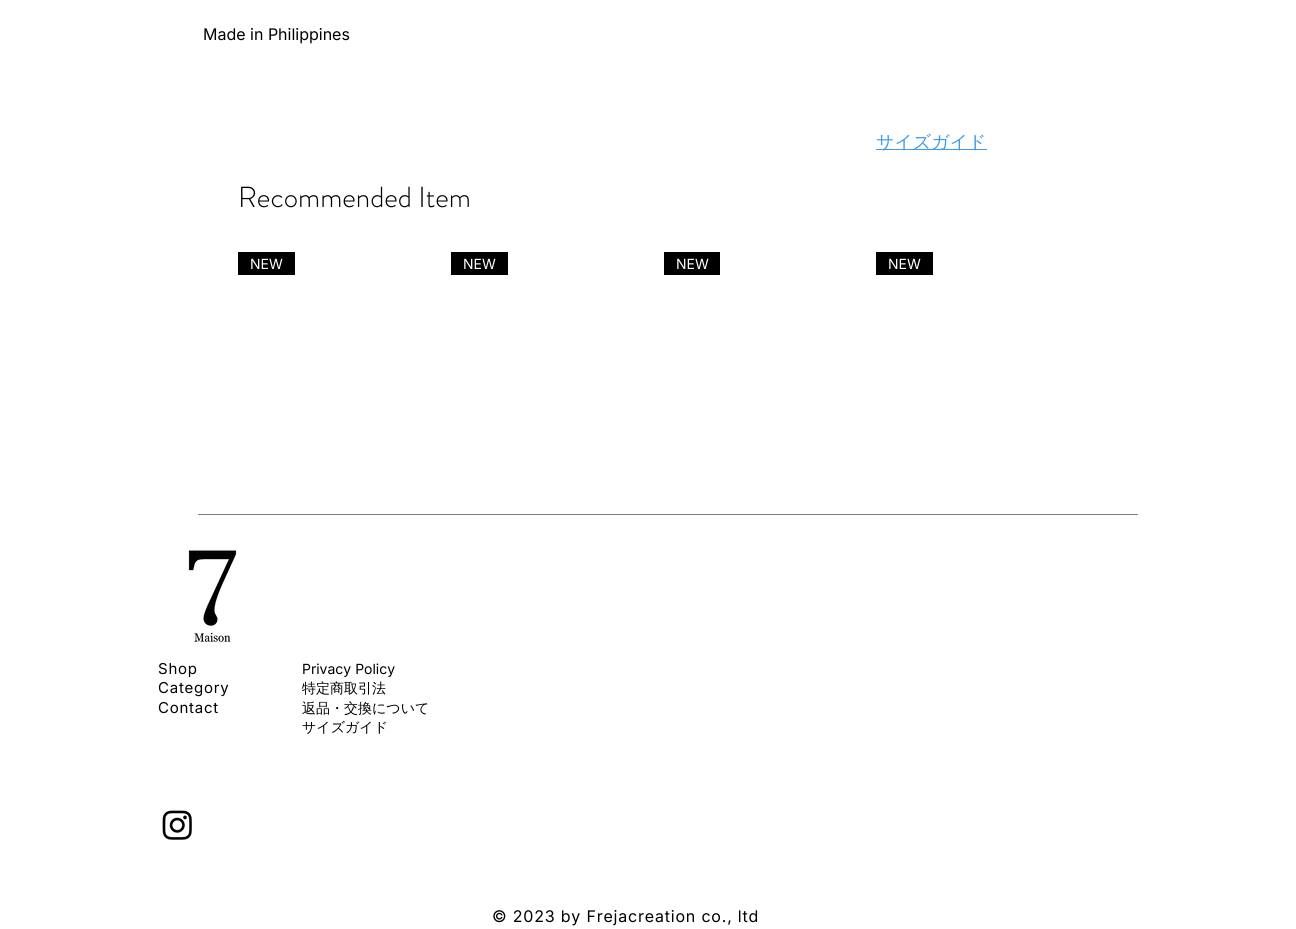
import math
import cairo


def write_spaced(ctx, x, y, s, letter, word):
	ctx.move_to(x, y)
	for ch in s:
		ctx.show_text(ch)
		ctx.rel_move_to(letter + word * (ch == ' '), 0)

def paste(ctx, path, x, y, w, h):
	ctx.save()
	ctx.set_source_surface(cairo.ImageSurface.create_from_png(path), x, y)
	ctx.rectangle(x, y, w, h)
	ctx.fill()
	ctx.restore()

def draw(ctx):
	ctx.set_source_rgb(1, 1, 1)
	ctx.paint()
	ctx.select_font_face('Inter')
	ctx.set_font_size(16)
	ctx.set_source_rgb(0, 0, 0)
	ctx.move_to(203, 40)
	ctx.show_text('Made in Philippines')
	ctx.set_source_rgb(0.239, 0.608, 0.914)
	ctx.rectangle(876, 149, 111, 1)
	ctx.fill()
	ctx.select_font_face('WenQuanYi Zen Hei Medium')
	ctx.set_font_size(18)
	ctx.move_to(876, 148)
	ctx.show_text('サイズガイド')
	ctx.select_font_face('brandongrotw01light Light')
	ctx.set_font_size(29)
	ctx.set_source_rgb(0, 0, 0)
	ctx.move_to(238, 207)
	ctx.show_text('Recommended Item')
	ctx.rectangle(238, 252, 57, 23)
	ctx.fill()
	ctx.select_font_face('Inter')
	ctx.set_font_size(14)
	ctx.set_source_rgb(1, 1, 1)
	ctx.move_to(250, 269)
	ctx.show_text('NEW')
	ctx.set_source_rgb(0, 0, 0)
	ctx.rectangle(451, 252, 57, 23)
	ctx.fill()
	ctx.set_source_rgb(1, 1, 1)
	ctx.move_to(463, 269)
	ctx.show_text('NEW')
	ctx.set_source_rgb(0, 0, 0)
	ctx.rectangle(664, 252, 56, 23)
	ctx.fill()
	ctx.set_source_rgb(1, 1, 1)
	ctx.move_to(676, 269)
	ctx.show_text('NEW')
	ctx.set_source_rgb(0, 0, 0)
	ctx.rectangle(876, 252, 57, 23)
	ctx.fill()
	ctx.set_source_rgb(1, 1, 1)
	ctx.move_to(888, 269)
	ctx.show_text('NEW')
	ctx.set_source_rgb(0.502, 0.502, 0.502)
	ctx.rectangle(198, 514, 940, 1)
	ctx.fill()
	paste(ctx, 'media/1.png', 188, 550, 49, 92)
	ctx.set_font_size(15)
	ctx.set_source_rgb(0, 0, 0)
	for x, y, s in [
		(158, 674, 'Shop'),
		(158, 693, 'Category'),
		(158, 713, 'Contact'),
	]:
		write_spaced(ctx, x, y, s, 0.75, 0)
	ctx.set_font_size(14)
	ctx.move_to(302, 674)
	ctx.show_text('Privacy Policy')
	ctx.select_font_face('WenQuanYi Zen Hei Medium')
	for x, y, s in [
		(302, 693, '特定商取引法'),
		(302, 713, '返品・交換について'),
		(302, 732, 'サイズガイド'),
	]:
		ctx.move_to(x, y)
		ctx.show_text(s)
	paste(ctx, 'media/2.png', 162, 810, 30, 30)
	ctx.select_font_face('Inter')
	ctx.set_font_size(16)
	write_spaced(ctx, 492, 922, '© 2023 by Frejacreation co., ltd', 0.8, 0)


surface = cairo.ImageSurface(cairo.FORMAT_RGB24, 1296, 929)
ctx = cairo.Context(surface)
options = cairo.FontOptions()
options.set_hint_metrics(cairo.HINT_METRICS_OFF)
options.set_hint_style(cairo.HINT_STYLE_NONE)
ctx.set_font_options(options)
ctx.set_miter_limit(4)
draw(ctx)
surface.write_to_png('image.png')
